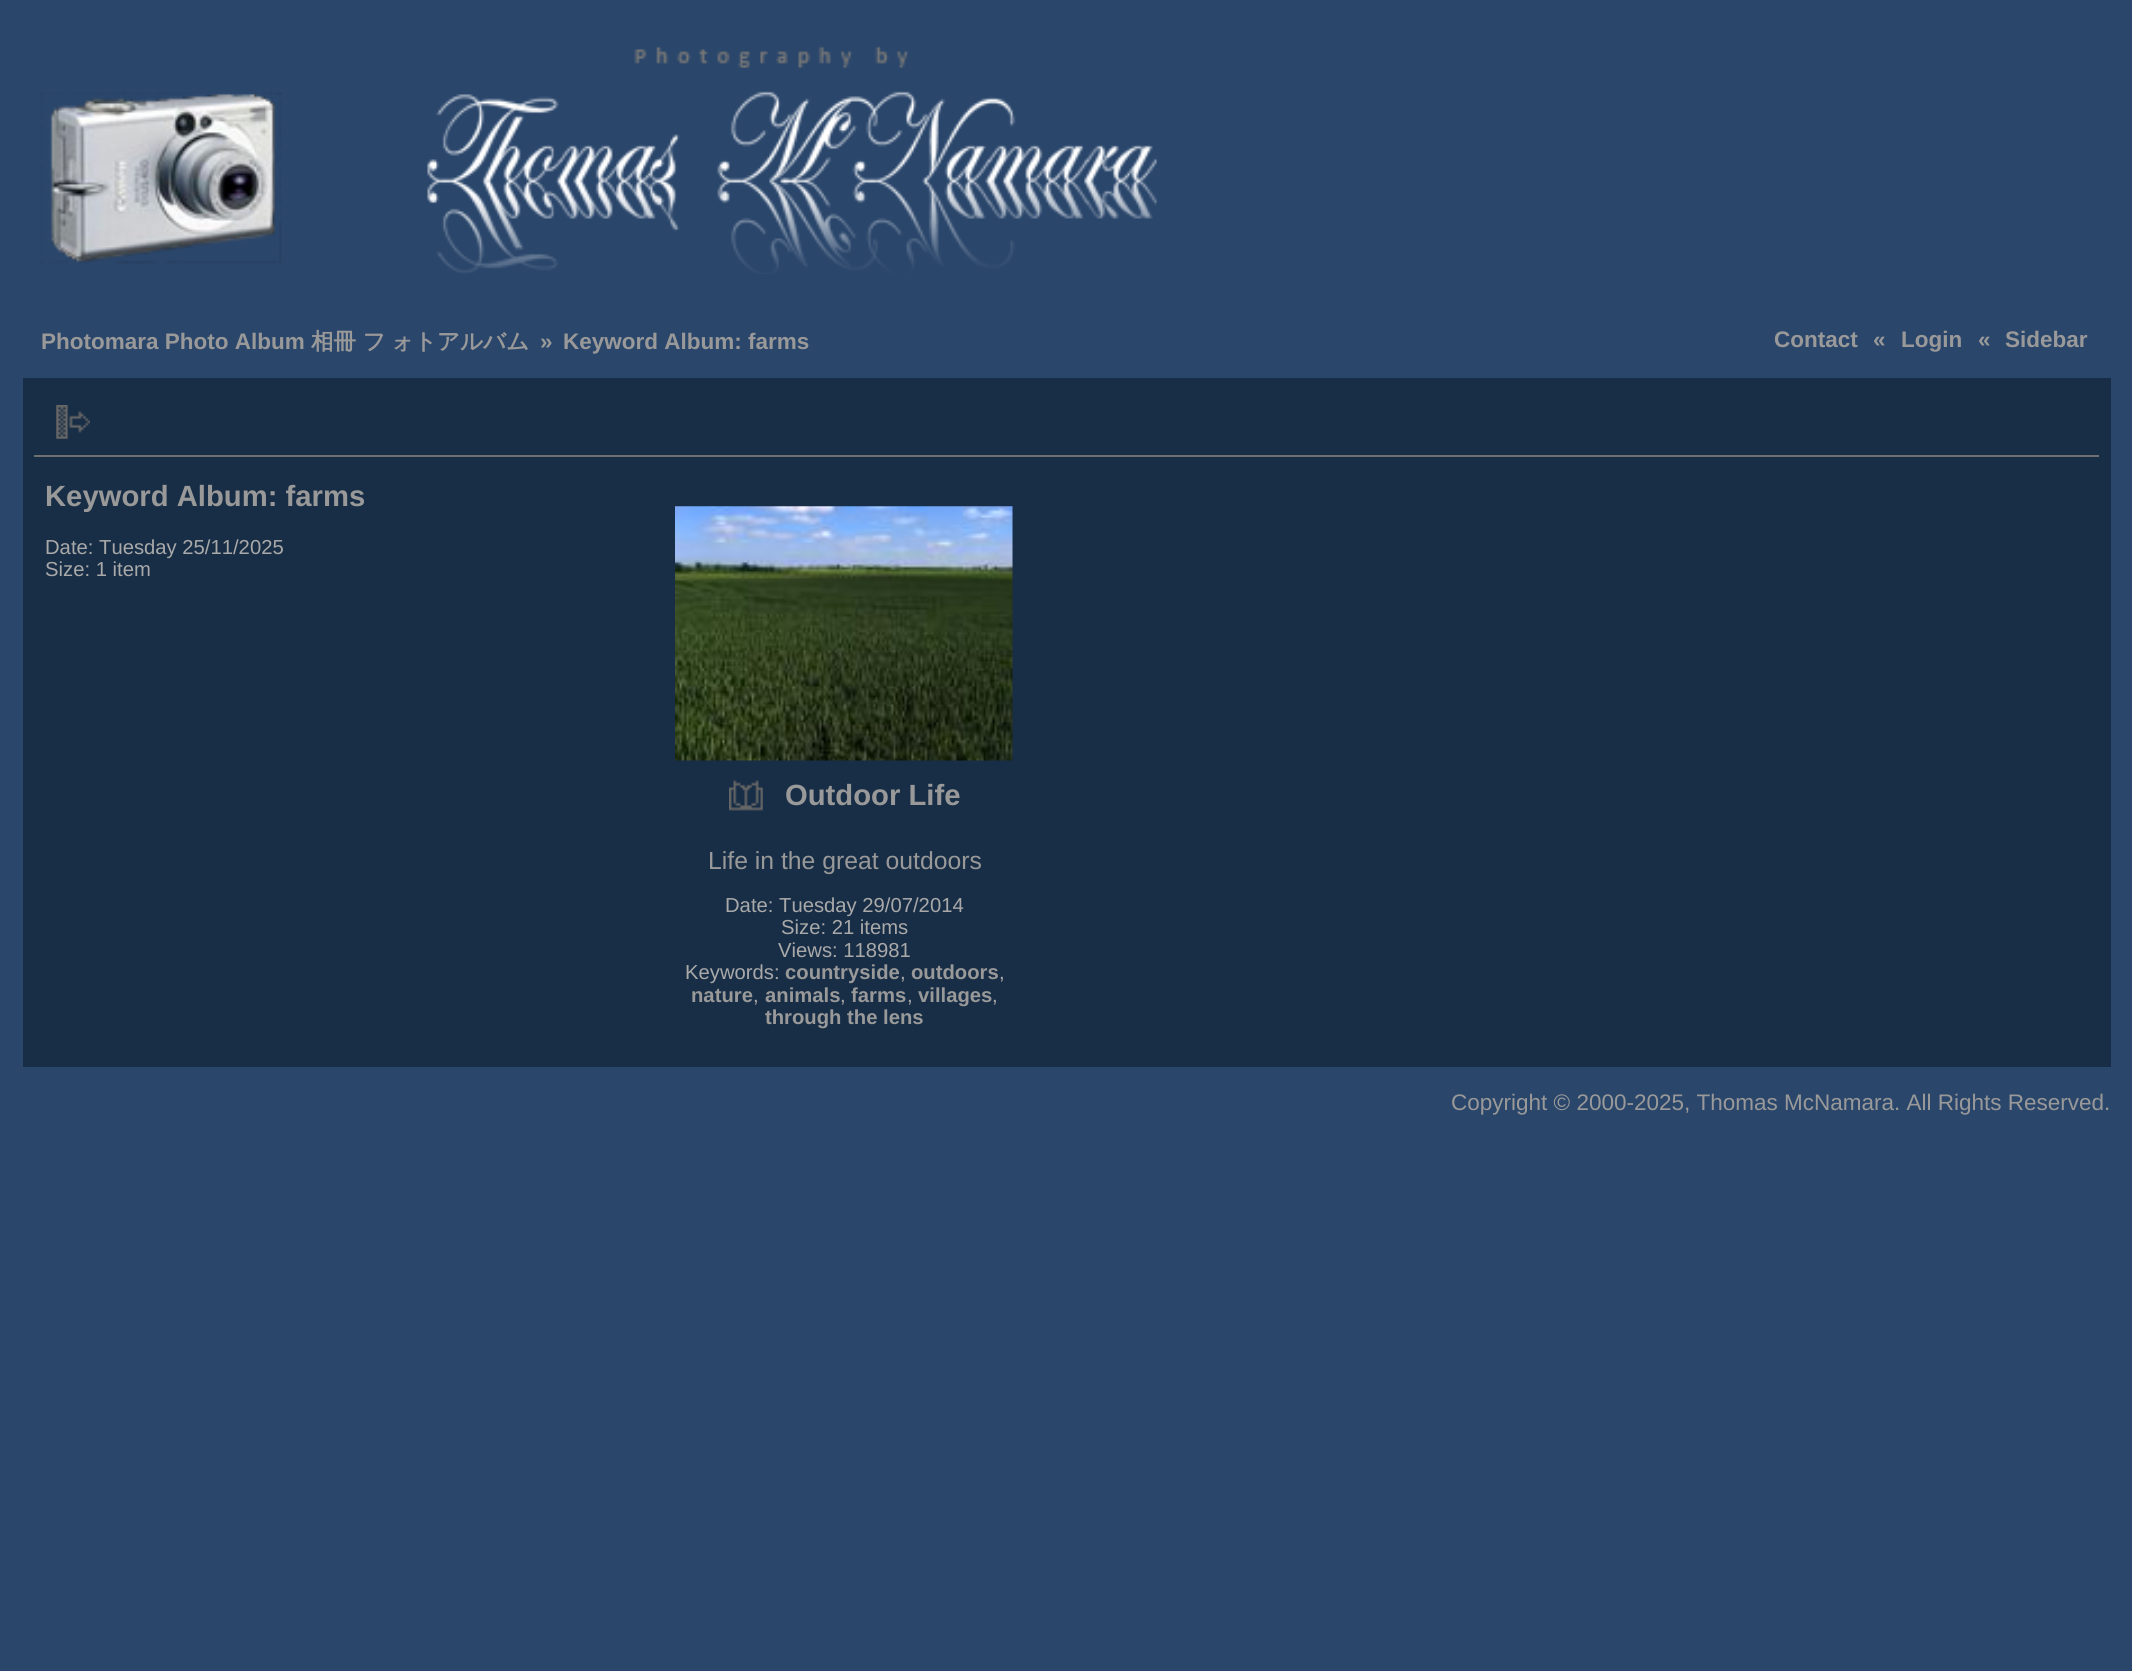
import math
import cairo


def paste(ctx, path, x, y, w, h):
	ctx.save()
	ctx.set_source_surface(cairo.ImageSurface.create_from_png(path), x, y)
	ctx.rectangle(x, y, w, h)
	ctx.fill()
	ctx.restore()

def draw(ctx):
	ctx.set_source_rgb(0.165, 0.275, 0.42)
	ctx.paint()
	paste(ctx, 'media/1.png', 40, 46, 1118, 228)
	ctx.select_font_face('Liberation Sans', cairo.FONT_SLANT_NORMAL, cairo.FONT_WEIGHT_BOLD)
	ctx.set_font_size(22.5)
	ctx.set_source_rgb(0.6, 0.6, 0.6)
	ctx.move_to(41, 349)
	ctx.show_text('Photomara Photo Album')
	ctx.select_font_face('WenQuanYi Zen Hei', cairo.FONT_SLANT_NORMAL, cairo.FONT_WEIGHT_BOLD)
	ctx.move_to(311, 349)
	ctx.show_text('相冊 フ')
	ctx.move_to(391, 349)
	ctx.show_text('ォトアルバム')
	ctx.select_font_face('Liberation Sans', cairo.FONT_SLANT_NORMAL, cairo.FONT_WEIGHT_BOLD)
	for x, y, s in [
		(540, 349, '»'),
		(563, 349, 'Keyword Album: farms'),
		(1774, 347, 'Contact'),
		(1873, 347, '«'),
		(1901, 347, 'Login'),
		(1978, 347, '«'),
		(2005, 347, 'Sidebar'),
	]:
		ctx.move_to(x, y)
		ctx.show_text(s)
	ctx.set_source_rgb(0.094, 0.18, 0.275)
	ctx.rectangle(23, 378, 2088, 689)
	ctx.fill()
	ctx.set_source_rgb(0.435, 0.435, 0.435)
	ctx.rectangle(34, 455, 2065, 2)
	ctx.fill()
	paste(ctx, 'media/2.png', 56, 405, 34, 34)
	ctx.set_font_size(29.25)
	ctx.set_source_rgb(0.6, 0.6, 0.6)
	ctx.move_to(45, 506)
	ctx.show_text('Keyword Album: farms')
	ctx.select_font_face('Liberation Sans')
	ctx.set_font_size(20.25)
	ctx.set_source_rgb(0.663, 0.663, 0.663)
	ctx.move_to(45, 554)
	ctx.show_text('Date: Tuesday 25/11/2025')
	ctx.move_to(45, 576)
	ctx.show_text('Size: 1 item')
	paste(ctx, 'media/3.png', 675, 506, 338, 255)
	paste(ctx, 'media/4.png', 729, 780, 34, 31)
	ctx.select_font_face('Liberation Sans', cairo.FONT_SLANT_NORMAL, cairo.FONT_WEIGHT_BOLD)
	ctx.set_font_size(29.25)
	ctx.set_source_rgb(0.6, 0.6, 0.6)
	ctx.move_to(785, 805)
	ctx.show_text('Outdoor Life')
	ctx.select_font_face('Liberation Sans')
	ctx.set_font_size(24.75)
	ctx.move_to(708, 869)
	ctx.show_text('Life in the great outdoors')
	ctx.set_font_size(20.25)
	ctx.set_source_rgb(0.663, 0.663, 0.663)
	for x, y, s in [
		(725, 912, 'Date: Tuesday 29/07/2014'),
		(781, 934, 'Size: 21 items'),
		(778, 957, 'Views: 118981'),
		(685, 979, 'Keywords:'),
	]:
		ctx.move_to(x, y)
		ctx.show_text(s)
	ctx.select_font_face('Liberation Sans', cairo.FONT_SLANT_NORMAL, cairo.FONT_WEIGHT_BOLD)
	ctx.set_source_rgb(0.6, 0.6, 0.6)
	ctx.move_to(785, 979)
	ctx.show_text('countryside')
	ctx.select_font_face('Liberation Sans')
	ctx.set_source_rgb(0.663, 0.663, 0.663)
	ctx.move_to(900, 979)
	ctx.show_text(',')
	ctx.select_font_face('Liberation Sans', cairo.FONT_SLANT_NORMAL, cairo.FONT_WEIGHT_BOLD)
	ctx.set_source_rgb(0.6, 0.6, 0.6)
	ctx.move_to(911, 979)
	ctx.show_text('outdoors')
	ctx.select_font_face('Liberation Sans')
	ctx.set_source_rgb(0.663, 0.663, 0.663)
	ctx.move_to(999, 979)
	ctx.show_text(',')
	ctx.select_font_face('Liberation Sans', cairo.FONT_SLANT_NORMAL, cairo.FONT_WEIGHT_BOLD)
	ctx.set_source_rgb(0.6, 0.6, 0.6)
	ctx.move_to(691, 1002)
	ctx.show_text('nature')
	ctx.select_font_face('Liberation Sans')
	ctx.set_source_rgb(0.663, 0.663, 0.663)
	ctx.move_to(753, 1002)
	ctx.show_text(',')
	ctx.select_font_face('Liberation Sans', cairo.FONT_SLANT_NORMAL, cairo.FONT_WEIGHT_BOLD)
	ctx.set_source_rgb(0.6, 0.6, 0.6)
	ctx.move_to(765, 1002)
	ctx.show_text('animals')
	ctx.select_font_face('Liberation Sans')
	ctx.set_source_rgb(0.663, 0.663, 0.663)
	ctx.move_to(840, 1002)
	ctx.show_text(',')
	ctx.select_font_face('Liberation Sans', cairo.FONT_SLANT_NORMAL, cairo.FONT_WEIGHT_BOLD)
	ctx.set_source_rgb(0.6, 0.6, 0.6)
	ctx.move_to(851, 1002)
	ctx.show_text('farms')
	ctx.select_font_face('Liberation Sans')
	ctx.set_source_rgb(0.663, 0.663, 0.663)
	ctx.move_to(907, 1002)
	ctx.show_text(',')
	ctx.select_font_face('Liberation Sans', cairo.FONT_SLANT_NORMAL, cairo.FONT_WEIGHT_BOLD)
	ctx.set_source_rgb(0.6, 0.6, 0.6)
	ctx.move_to(918, 1002)
	ctx.show_text('villages')
	ctx.select_font_face('Liberation Sans')
	ctx.set_source_rgb(0.663, 0.663, 0.663)
	ctx.move_to(992, 1002)
	ctx.show_text(',')
	ctx.select_font_face('Liberation Sans', cairo.FONT_SLANT_NORMAL, cairo.FONT_WEIGHT_BOLD)
	ctx.set_source_rgb(0.6, 0.6, 0.6)
	ctx.move_to(765, 1024)
	ctx.show_text('through the lens')
	ctx.select_font_face('Liberation Sans')
	ctx.set_font_size(22.5)
	ctx.move_to(1451, 1110)
	ctx.show_text('Copyright © 2000-2025, Thomas McNamara. All Rights Reserved.')


surface = cairo.ImageSurface(cairo.FORMAT_RGB24, 2132, 1671)
ctx = cairo.Context(surface)
options = cairo.FontOptions()
options.set_hint_metrics(cairo.HINT_METRICS_OFF)
options.set_hint_style(cairo.HINT_STYLE_NONE)
ctx.set_font_options(options)
ctx.set_miter_limit(4)
draw(ctx)
surface.write_to_png('image.png')
